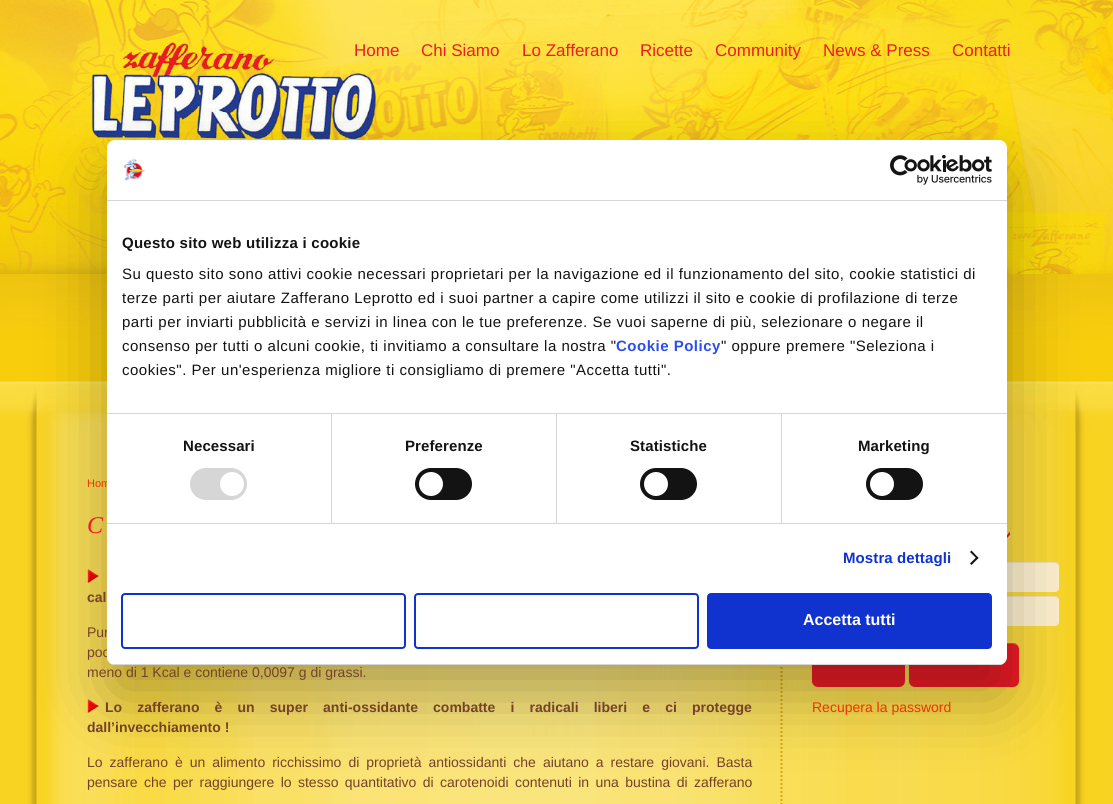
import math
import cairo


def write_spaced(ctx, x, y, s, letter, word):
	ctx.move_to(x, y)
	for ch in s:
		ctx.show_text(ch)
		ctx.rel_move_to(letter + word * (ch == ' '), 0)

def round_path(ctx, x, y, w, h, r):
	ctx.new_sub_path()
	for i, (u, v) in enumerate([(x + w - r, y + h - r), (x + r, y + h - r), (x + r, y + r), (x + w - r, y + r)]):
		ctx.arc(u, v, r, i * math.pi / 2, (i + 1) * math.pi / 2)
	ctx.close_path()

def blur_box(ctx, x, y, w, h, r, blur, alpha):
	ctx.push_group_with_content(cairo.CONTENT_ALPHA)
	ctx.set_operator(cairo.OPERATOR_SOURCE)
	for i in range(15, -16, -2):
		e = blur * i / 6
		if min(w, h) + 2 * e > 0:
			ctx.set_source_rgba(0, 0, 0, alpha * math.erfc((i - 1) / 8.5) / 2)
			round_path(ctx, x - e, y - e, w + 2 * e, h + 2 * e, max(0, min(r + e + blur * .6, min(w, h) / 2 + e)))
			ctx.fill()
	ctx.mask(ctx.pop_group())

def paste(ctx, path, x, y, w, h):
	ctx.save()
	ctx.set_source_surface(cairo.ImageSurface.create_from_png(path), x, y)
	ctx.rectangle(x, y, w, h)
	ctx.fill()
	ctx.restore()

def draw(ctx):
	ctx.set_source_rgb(1, 1, 1)
	ctx.paint()
	paste(ctx, 'media/1.png', 0, 0, 1113, 433)
	paste(ctx, 'media/2.png', 91, 42, 285, 98)
	ctx.select_font_face('Liberation Sans')
	ctx.set_font_size(17)
	ctx.set_source_rgb(0.929, 0.11, 0.141)
	for x, y, s in [
		(354, 56, 'Home'),
		(421, 56, 'Chi Siamo'),
		(522, 56, 'Lo Zafferano'),
		(640, 56, 'Ricette'),
		(715, 56, 'Community'),
		(823, 56, 'News & Press'),
		(952, 56, 'Contatti'),
	]:
		ctx.move_to(x, y)
		ctx.show_text(s)
	paste(ctx, 'media/5.png', 0, 433, 1113, 371)
	paste(ctx, 'media/6.png', 87, 569, 12, 14)
	paste(ctx, 'media/6.png', 87, 699, 12, 14)
	paste(ctx, 'media/7.png', 1007, 524, 5, 21)
	ctx.set_source_rgb(0.992, 0.937, 0.8)
	round_path(ctx, 814, 562, 245, 30, 4)
	ctx.fill()
	ctx.set_source_rgba(0, 0, 0, 0.07)
	ctx.new_path()
	ctx.move_to(818, 563)
	ctx.line_to(1055, 563)
	ctx.curve_to(1057, 563, 1059, 565, 1059, 567)
	ctx.line_to(1059, 566)
	ctx.curve_to(1059, 564, 1057, 562, 1055, 562)
	ctx.line_to(818, 562)
	ctx.curve_to(816, 562, 814, 564, 814, 566)
	ctx.line_to(814, 567)
	ctx.curve_to(814, 565, 816, 563, 818, 563)
	ctx.close_path()
	ctx.fill()
	ctx.set_source_rgb(0.992, 0.937, 0.8)
	round_path(ctx, 814, 596, 245, 30, 4)
	ctx.fill()
	ctx.set_source_rgba(0, 0, 0, 0.07)
	ctx.new_path()
	ctx.move_to(818, 597)
	ctx.line_to(1055, 597)
	ctx.curve_to(1057, 597, 1059, 599, 1059, 601)
	ctx.line_to(1059, 600)
	ctx.curve_to(1059, 598, 1057, 596, 1055, 596)
	ctx.line_to(818, 596)
	ctx.curve_to(816, 596, 814, 598, 814, 600)
	ctx.line_to(814, 601)
	ctx.curve_to(814, 599, 816, 597, 818, 597)
	ctx.close_path()
	ctx.fill()
	ctx.set_source_rgb(0, 0, 0)
	blur_box(ctx, 812, 644, 93, 44, 6, 1, 0.05)
	ctx.set_source_rgb(0.929, 0.106, 0.141)
	round_path(ctx, 812, 643, 93, 44, 6)
	ctx.fill()
	ctx.set_source_rgb(0, 0, 0)
	blur_box(ctx, 909, 644, 110, 44, 6, 1, 0.05)
	ctx.set_source_rgb(0.929, 0.106, 0.141)
	round_path(ctx, 909, 643, 110, 44, 6)
	ctx.fill()
	ctx.set_source_rgba(1, 1, 1, 0.2)
	ctx.new_path()
	ctx.move_to(915, 644)
	ctx.line_to(1013, 644)
	ctx.curve_to(1016, 644, 1019, 647, 1019, 650)
	ctx.curve_to(1019, 639, 1003, 643, 997, 643)
	ctx.line_to(931, 643)
	ctx.curve_to(925, 643, 909, 639, 909, 650)
	ctx.curve_to(909, 647, 912, 644, 915, 644)
	ctx.close_path()
	ctx.fill()
	ctx.set_source_rgb(0, 0, 0)
	blur_box(ctx, 107, 172, 900, 525, 8, 34, 0.3)
	ctx.set_font_size(11)
	ctx.set_source_rgb(0.922, 0.208, 0)
	ctx.move_to(87, 487)
	ctx.show_text('Hom')
	ctx.set_font_size(14)
	ctx.set_source_rgb(0.455, 0.259, 0.161)
	ctx.move_to(87, 637)
	ctx.show_text('Pur')
	write_spaced(ctx, 87, 657, 'poc', 0, 1)
	ctx.set_source_rgb(1, 1, 1)
	round_path(ctx, 107, 140, 900, 525, 8)
	ctx.fill()
	ctx.set_source_rgb(0.839, 0.839, 0.839)
	ctx.rectangle(107, 200, 900, 1)
	ctx.fill()
	paste(ctx, 'media/3.png', 123, 158, 22, 23)
	paste(ctx, 'media/4.png', 890, 155, 102, 30)
	ctx.rectangle(107, 413, 900, 1)
	ctx.fill()
	ctx.select_font_face('Liberation Sans', cairo.FONT_SLANT_NORMAL, cairo.FONT_WEIGHT_BOLD)
	ctx.set_font_size(15)
	ctx.set_source_rgb(0.078, 0.078, 0.078)
	write_spaced(ctx, 122, 248, 'Questo sito web utilizza i cookie', 0.25, 0)
	ctx.select_font_face('Liberation Sans')
	for x, y, s in [
		(122, 279, 'Su questo sito sono attivi cookie necessari proprietari per la navigazione ed il funzionamento del sito, cookie statistici di'),
		(122, 303, 'terze parti per aiutare Zafferano Leprotto ed i suoi partner a capire come utilizzi il sito e cookie di profilazione di terze'),
		(122, 327, 'parti per inviarti pubblicità e servizi in linea con le tue preferenze. Se vuoi saperne di più, selezionare o negare il'),
		(122, 351, 'consenso per tutti o alcuni cookie, ti invitiamo a consultare la nostra "'),
	]:
		write_spaced(ctx, x, y, s, 0.5, 0)
	ctx.select_font_face('Liberation Sans', cairo.FONT_SLANT_NORMAL, cairo.FONT_WEIGHT_BOLD)
	ctx.set_source_rgb(0.165, 0.306, 0.937)
	write_spaced(ctx, 616, 351, 'Cookie Policy', 0.5, 0)
	ctx.select_font_face('Liberation Sans')
	ctx.set_source_rgb(0.078, 0.078, 0.078)
	write_spaced(ctx, 721, 351, '" oppure premere "Seleziona i', 0.5, 0)
	write_spaced(ctx, 122, 375, 'cookies". Per un\'esperienza migliore ti consigliamo di premere "Accetta tutti".', 0.5, 0)
	ctx.set_source_rgb(0.839, 0.839, 0.839)
	ctx.rectangle(107, 523, 900, 1)
	ctx.fill()
	ctx.rectangle(331, 414, 1, 109)
	ctx.fill()
	ctx.select_font_face('Liberation Sans', cairo.FONT_SLANT_NORMAL, cairo.FONT_WEIGHT_BOLD)
	ctx.set_source_rgb(0.078, 0.078, 0.078)
	write_spaced(ctx, 183, 451, 'Necessari', 0.1, 0)
	ctx.set_source_rgb(0.839, 0.839, 0.839)
	round_path(ctx, 190, 468, 57, 32, 16)
	ctx.fill()
	ctx.set_source_rgb(1, 1, 1)
	ctx.arc(232, 484, 12, 0, 2 * math.pi)
	ctx.fill()
	ctx.set_source_rgb(0.839, 0.839, 0.839)
	ctx.rectangle(556, 414, 1, 109)
	ctx.fill()
	ctx.set_source_rgb(0.078, 0.078, 0.078)
	write_spaced(ctx, 405, 451, 'Preferenze', 0.1, 0)
	round_path(ctx, 415, 468, 57, 32, 16)
	ctx.fill()
	ctx.set_source_rgb(1, 1, 1)
	ctx.arc(431, 484, 12, 0, 2 * math.pi)
	ctx.fill()
	ctx.set_source_rgb(0.839, 0.839, 0.839)
	ctx.rectangle(781, 414, 1, 109)
	ctx.fill()
	ctx.set_source_rgb(0.078, 0.078, 0.078)
	write_spaced(ctx, 630, 451, 'Statistiche', 0.1, 0)
	round_path(ctx, 640, 468, 57, 32, 16)
	ctx.fill()
	ctx.set_source_rgb(1, 1, 1)
	ctx.arc(656, 484, 12, 0, 2 * math.pi)
	ctx.fill()
	ctx.set_source_rgb(0.078, 0.078, 0.078)
	write_spaced(ctx, 858, 451, 'Marketing', 0.1, 0)
	round_path(ctx, 866, 468, 57, 32, 16)
	ctx.fill()
	ctx.set_source_rgb(1, 1, 1)
	ctx.arc(882, 484, 12, 0, 2 * math.pi)
	ctx.fill()
	ctx.set_source_rgb(0.063, 0.196, 0.812)
	write_spaced(ctx, 843, 563, 'Mostra dettagli', 0.1, 0)
	ctx.set_source_rgb(0.078, 0.078, 0.078)
	ctx.new_path()
	ctx.move_to(971.5, 550.5)
	ctx.line_to(978.5, 558)
	ctx.line_to(977, 559)
	ctx.line_to(970, 552)
	ctx.close_path()
	ctx.fill()
	ctx.new_path()
	ctx.move_to(977, 556.5)
	ctx.line_to(978.5, 558)
	ctx.line_to(971.5, 565)
	ctx.line_to(970, 563.5)
	ctx.close_path()
	ctx.fill()
	ctx.save()
	round_path(ctx, 107, 140, 900, 525, 8)
	ctx.clip()
	ctx.set_source_rgb(0.839, 0.839, 0.839)
	ctx.rectangle(107, 664, 900, 1)
	ctx.fill()
	ctx.restore()
	round_path(ctx, 122, 594, 283, 54, 3)
	ctx.set_source_rgb(0.063, 0.196, 0.812)
	ctx.stroke()
	round_path(ctx, 415, 594, 283, 54, 3)
	ctx.stroke()
	round_path(ctx, 708, 594, 283, 54, 3)
	ctx.fill_preserve()
	ctx.stroke()
	ctx.set_font_size(16)
	ctx.set_source_rgb(1, 1, 1)
	ctx.move_to(803, 625)
	ctx.show_text('Accetta tutti')
	ctx.select_font_face('Liberation Serif', cairo.FONT_SLANT_ITALIC)
	ctx.set_font_size(24)
	ctx.set_source_rgb(0.929, 0.11, 0.141)
	ctx.move_to(87, 533)
	ctx.show_text('C')
	ctx.select_font_face('Liberation Sans', cairo.FONT_SLANT_NORMAL, cairo.FONT_WEIGHT_BOLD)
	ctx.set_font_size(14)
	ctx.set_source_rgb(0.455, 0.259, 0.161)
	ctx.move_to(87, 602)
	ctx.show_text('cal')
	ctx.select_font_face('Liberation Sans')
	ctx.move_to(87, 677)
	ctx.show_text('meno di 1 Kcal e contiene 0,0097 g di grassi.')
	ctx.select_font_face('Liberation Sans', cairo.FONT_SLANT_NORMAL, cairo.FONT_WEIGHT_BOLD)
	write_spaced(ctx, 105, 712, 'Lo zafferano è un super anti-ossidante combatte i radicali liberi e ci protegge', 0, 11.25)
	ctx.move_to(87, 732)
	ctx.show_text('dall’invecchiamento !')
	ctx.select_font_face('Liberation Sans')
	write_spaced(ctx, 87, 767, 'Lo zafferano è un alimento ricchissimo di proprietà antiossidanti che aiutano a restare giovani. Basta', 0, 3.1)
	write_spaced(ctx, 87, 787, 'pensare che per raggiungere lo stesso quantitativo di carotenoidi contenuti in una bustina di zafferano', 0, 2.5)
	ctx.set_source_rgb(0.922, 0.208, 0)
	ctx.move_to(812, 712)
	ctx.show_text('Recupera la password')


surface = cairo.ImageSurface(cairo.FORMAT_RGB24, 1113, 804)
ctx = cairo.Context(surface)
options = cairo.FontOptions()
options.set_hint_metrics(cairo.HINT_METRICS_OFF)
options.set_hint_style(cairo.HINT_STYLE_NONE)
ctx.set_font_options(options)
ctx.set_miter_limit(4)
draw(ctx)
surface.write_to_png('image.png')
